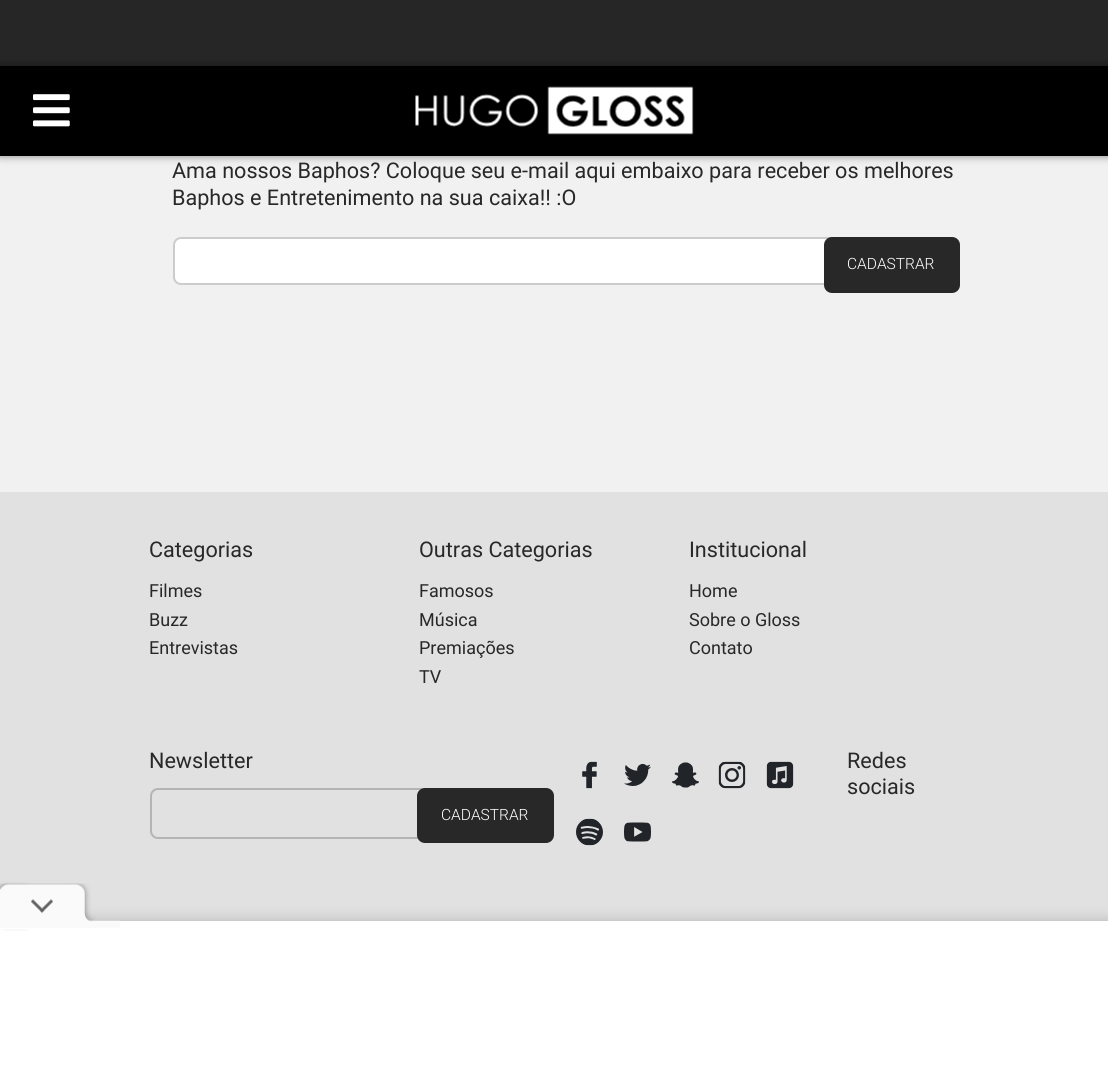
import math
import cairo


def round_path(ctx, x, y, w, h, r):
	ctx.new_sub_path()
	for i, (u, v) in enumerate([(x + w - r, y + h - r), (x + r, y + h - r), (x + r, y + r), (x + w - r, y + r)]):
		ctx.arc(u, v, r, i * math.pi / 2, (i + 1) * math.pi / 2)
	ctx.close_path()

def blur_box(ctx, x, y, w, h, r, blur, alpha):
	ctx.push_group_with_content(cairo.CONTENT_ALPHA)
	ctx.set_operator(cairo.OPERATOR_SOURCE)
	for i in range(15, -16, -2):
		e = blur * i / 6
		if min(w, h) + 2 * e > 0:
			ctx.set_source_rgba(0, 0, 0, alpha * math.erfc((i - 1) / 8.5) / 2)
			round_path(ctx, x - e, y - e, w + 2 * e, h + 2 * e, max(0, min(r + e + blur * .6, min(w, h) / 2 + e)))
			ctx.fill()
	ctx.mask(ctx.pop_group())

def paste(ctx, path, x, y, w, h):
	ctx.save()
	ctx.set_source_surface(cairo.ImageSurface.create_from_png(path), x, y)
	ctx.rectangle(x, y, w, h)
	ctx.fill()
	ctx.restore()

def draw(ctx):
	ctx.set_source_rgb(0.945, 0.945, 0.945)
	ctx.paint()
	ctx.set_source_rgb(0.149, 0.149, 0.149)
	ctx.rectangle(0, 0, 1108, 66)
	ctx.fill()
	ctx.set_source_rgb(0, 0, 0)
	blur_box(ctx, 0, 66, 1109, 90, 0, 4, 0.3)
	blur_box(ctx, 0, 66, 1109, 90, 0, 4.5, 0.2)
	ctx.set_source_rgb(0, 0, 0)
	ctx.rectangle(0, 66, 1108, 90)
	ctx.fill()
	paste(ctx, 'media/1.png', 33, 94, 37, 33)
	paste(ctx, 'media/2.png', 415, 86, 279, 49)
	ctx.select_font_face('Roboto')
	ctx.set_font_size(21.6)
	ctx.set_source_rgb(0.157, 0.157, 0.157)
	ctx.move_to(172, 178)
	ctx.show_text('Ama nossos Baphos? Coloque seu e-mail aqui embaixo para receber os melhores')
	ctx.move_to(172, 205)
	ctx.show_text('Baphos e Entretenimento na sua caixa!! :O')
	ctx.set_source_rgb(1, 1, 1)
	round_path(ctx, 173, 237, 787, 48, 8)
	ctx.fill()
	round_path(ctx, 174, 238, 785, 46, 7)
	ctx.set_source_rgba(0, 0, 0, 0.2)
	ctx.stroke()
	ctx.set_source_rgb(0.157, 0.157, 0.157)
	round_path(ctx, 824, 237, 136, 56, 8)
	ctx.fill()
	ctx.select_font_face('Roboto Light')
	ctx.set_font_size(15.5)
	ctx.set_source_rgb(1, 1, 1)
	ctx.move_to(847, 269)
	ctx.show_text('CADASTRAR')
	ctx.set_source_rgb(0.882, 0.882, 0.882)
	ctx.rectangle(0, 492, 1108, 429)
	ctx.fill()
	ctx.select_font_face('Roboto')
	ctx.set_font_size(21.6)
	ctx.set_source_rgb(0.157, 0.157, 0.157)
	ctx.move_to(149, 557)
	ctx.show_text('Categorias')
	ctx.set_font_size(18)
	for x, y, s in [
		(149, 597, 'Filmes'),
		(149, 626, 'Buzz'),
		(149, 654, 'Entrevistas'),
	]:
		ctx.move_to(x, y)
		ctx.show_text(s)
	ctx.set_font_size(21.6)
	ctx.move_to(419, 557)
	ctx.show_text('Outras Categorias')
	ctx.set_font_size(18)
	for x, y, s in [
		(419, 597, 'Famosos'),
		(419, 626, 'Música'),
		(419, 654, 'Premiações'),
		(419, 683, 'TV'),
	]:
		ctx.move_to(x, y)
		ctx.show_text(s)
	ctx.set_font_size(21.6)
	ctx.move_to(689, 557)
	ctx.show_text('Institucional')
	ctx.set_font_size(18)
	for x, y, s in [
		(689, 597, 'Home'),
		(689, 626, 'Sobre o Gloss'),
		(689, 654, 'Contato'),
	]:
		ctx.move_to(x, y)
		ctx.show_text(s)
	ctx.set_font_size(21.6)
	ctx.move_to(149, 768)
	ctx.show_text('Newsletter')
	round_path(ctx, 151, 789, 402, 49, 7)
	ctx.set_source_rgb(0.706, 0.706, 0.706)
	ctx.stroke()
	ctx.set_source_rgb(0.157, 0.157, 0.157)
	round_path(ctx, 417, 788, 137, 55, 8)
	ctx.fill()
	ctx.select_font_face('Roboto Light')
	ctx.set_font_size(15.5)
	ctx.set_source_rgb(1, 1, 1)
	ctx.move_to(441, 820)
	ctx.show_text('CADASTRAR')
	paste(ctx, 'media/3.png', 582, 761, 15, 28)
	paste(ctx, 'media/4.png', 624, 764, 27, 22)
	paste(ctx, 'media/5.png', 672, 762, 27, 26)
	paste(ctx, 'media/6.png', 718, 761, 28, 28)
	paste(ctx, 'media/7.png', 766, 761, 28, 28)
	paste(ctx, 'media/8.png', 576, 818, 27, 28)
	paste(ctx, 'media/9.png', 624, 822, 27, 20)
	ctx.select_font_face('Roboto')
	ctx.set_font_size(21.6)
	ctx.set_source_rgb(0.157, 0.157, 0.157)
	ctx.move_to(847, 768)
	ctx.show_text('Redes')
	ctx.move_to(847, 794)
	ctx.show_text('sociais')
	ctx.set_source_rgb(0, 0, 0)
	blur_box(ctx, 0, 921, 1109, 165, 0, 7.5, 0.2)
	ctx.set_source_rgb(1, 1, 1)
	ctx.rectangle(0, 921, 1108, 164)
	ctx.fill()
	ctx.set_source_rgb(0, 0, 0)
	blur_box(ctx, 0, 887, 30, 39, 6, 3, 0.27)
	ctx.set_source_rgb(1, 1, 1)
	ctx.rectangle(0, 928, 30, 1)
	ctx.fill()
	paste(ctx, 'media/10.png', 0, 883, 120, 45)


surface = cairo.ImageSurface(cairo.FORMAT_RGB24, 1108, 1085)
ctx = cairo.Context(surface)
options = cairo.FontOptions()
options.set_hint_metrics(cairo.HINT_METRICS_OFF)
options.set_hint_style(cairo.HINT_STYLE_NONE)
ctx.set_font_options(options)
ctx.set_miter_limit(4)
draw(ctx)
surface.write_to_png('image.png')
